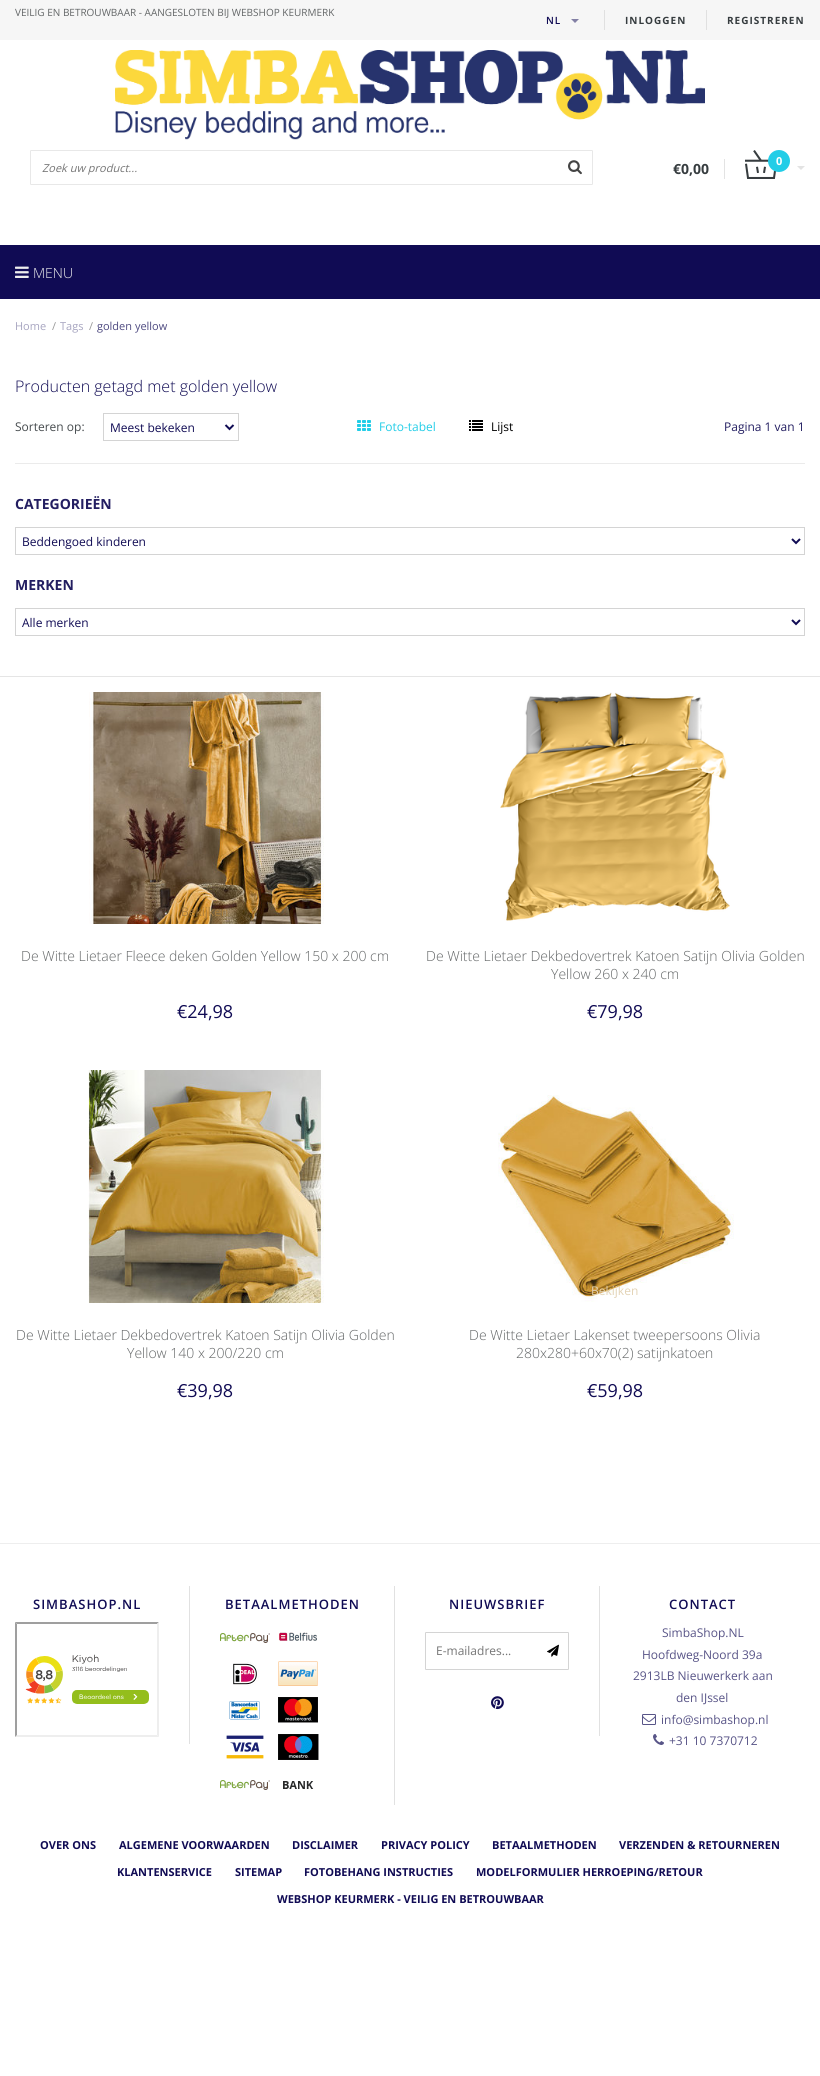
import math
import cairo


def write_spaced(ctx, x, y, s, letter, word):
	ctx.move_to(x, y)
	for ch in s:
		ctx.show_text(ch)
		ctx.rel_move_to(letter + word * (ch == ' '), 0)

def round_path(ctx, x, y, w, h, r):
	ctx.new_sub_path()
	for i, (u, v) in enumerate([(x + w - r, y + h - r), (x + r, y + h - r), (x + r, y + r), (x + w - r, y + r)]):
		ctx.arc(u, v, r, i * math.pi / 2, (i + 1) * math.pi / 2)
	ctx.close_path()

def paste(ctx, path, x, y, w, h):
	ctx.save()
	ctx.set_source_surface(cairo.ImageSurface.create_from_png(path), x, y)
	ctx.rectangle(x, y, w, h)
	ctx.fill()
	ctx.restore()

def draw(ctx):
	ctx.set_source_rgb(1, 1, 1)
	ctx.paint()
	ctx.set_source_rgb(0.961, 0.961, 0.961)
	ctx.rectangle(0, 0, 820, 40)
	ctx.fill()
	ctx.select_font_face('Open Sans')
	ctx.set_font_size(10)
	ctx.set_source_rgb(0.388, 0.4, 0.404)
	ctx.move_to(15, 16)
	ctx.show_text('VEILIG EN BETROUWBAAR - AANGESLOTEN BIJ WEBSHOP KEURMERK')
	ctx.select_font_face('Open Sans SemiBold')
	ctx.set_source_rgb(0.063, 0.043, 0.329)
	write_spaced(ctx, 546, 24, 'NL', 1, 0)
	ctx.set_source_rgb(0.514, 0.502, 0.647)
	ctx.new_path()
	ctx.move_to(571, 19)
	ctx.line_to(579, 19)
	ctx.line_to(575, 23)
	ctx.close_path()
	ctx.fill()
	ctx.set_source_rgb(0.878, 0.878, 0.878)
	ctx.rectangle(604, 10, 1, 20)
	ctx.fill()
	ctx.select_font_face('Open Sans', cairo.FONT_SLANT_NORMAL, cairo.FONT_WEIGHT_BOLD)
	ctx.set_source_rgb(0.212, 0.235, 0.247)
	write_spaced(ctx, 625, 24, 'INLOGGEN', 1, 0)
	ctx.set_source_rgb(0.878, 0.878, 0.878)
	ctx.rectangle(706, 10, 1, 20)
	ctx.fill()
	ctx.set_source_rgb(0.212, 0.235, 0.247)
	write_spaced(ctx, 727, 24, 'REGISTREREN', 1, 0)
	paste(ctx, 'media/1.png', 115, 50, 590, 90)
	round_path(ctx, 30.5, 150.5, 562, 34, 0.5)
	ctx.set_source_rgb(0.91, 0.91, 0.91)
	ctx.set_line_width(1)
	ctx.stroke()
	ctx.select_font_face('Open Sans', cairo.FONT_SLANT_ITALIC)
	ctx.set_font_size(11)
	ctx.set_source_rgb(0.459, 0.459, 0.459)
	ctx.move_to(42, 172)
	ctx.show_text('Zoek uw product...')
	paste(ctx, 'media/2.png', 568, 160, 14, 15)
	paste(ctx, 'media/3.png', 745, 150, 60, 29)
	ctx.set_source_rgb(0.89, 0.89, 0.89)
	ctx.rectangle(724, 159, 1, 20)
	ctx.fill()
	ctx.set_source_rgb(0.133, 0.804, 0.906)
	ctx.arc(779, 161, 11, 0, 2 * math.pi)
	ctx.fill()
	ctx.select_font_face('Open Sans', cairo.FONT_SLANT_NORMAL, cairo.FONT_WEIGHT_BOLD)
	ctx.set_source_rgb(1, 1, 1)
	ctx.move_to(776, 165)
	ctx.show_text('0')
	ctx.set_font_size(14)
	ctx.set_source_rgb(0.212, 0.235, 0.247)
	ctx.move_to(673, 174)
	ctx.show_text('€0,00')
	ctx.set_source_rgb(0.063, 0.043, 0.329)
	ctx.rectangle(0, 245, 820, 54)
	ctx.fill()
	paste(ctx, 'media/4.png', 15, 266, 14, 12)
	ctx.select_font_face('Open Sans Light')
	ctx.set_source_rgb(0.933, 0.933, 0.933)
	ctx.move_to(33, 278)
	ctx.show_text('MENU')
	ctx.select_font_face('Open Sans')
	ctx.set_font_size(11)
	ctx.set_source_rgb(0.655, 0.647, 0.753)
	ctx.move_to(15, 330)
	ctx.show_text('Home')
	ctx.set_source_rgb(0.6, 0.6, 0.6)
	write_spaced(ctx, 52, 330, '/', -2, 0)
	ctx.set_source_rgb(0.655, 0.647, 0.753)
	ctx.move_to(60, 330)
	ctx.show_text('Tags')
	ctx.set_source_rgb(0.6, 0.6, 0.6)
	write_spaced(ctx, 89, 330, '/', -2, 0)
	ctx.set_source_rgb(0.31, 0.294, 0.506)
	ctx.move_to(97, 330)
	ctx.show_text('golden yellow')
	ctx.select_font_face('Open Sans Light')
	ctx.set_font_size(16)
	ctx.set_source_rgb(0.063, 0.043, 0.329)
	ctx.move_to(15, 392)
	ctx.show_text('Producten getagd met golden yellow')
	ctx.select_font_face('Open Sans')
	ctx.set_font_size(12)
	ctx.set_source_rgb(0.275, 0.294, 0.306)
	ctx.move_to(15, 431)
	ctx.show_text('Sorteren op:')
	ctx.rectangle(103.5, 413.5, 135, 27)
	ctx.set_source_rgb(0.831, 0.831, 0.831)
	ctx.stroke()
	ctx.new_path()
	ctx.move_to(225.5, 425)
	ctx.line_to(229.5, 429)
	ctx.line_to(233.5, 425)
	ctx.set_source_rgb(0.063, 0.043, 0.329)
	ctx.set_line_width(2)
	ctx.stroke()
	ctx.move_to(110, 432)
	ctx.show_text('Meest bekeken')
	paste(ctx, 'media/5.png', 357, 420, 14, 11)
	ctx.set_source_rgb(0.133, 0.804, 0.906)
	ctx.move_to(379, 431)
	ctx.show_text('Foto-tabel')
	paste(ctx, 'media/6.png', 469, 420, 14, 11)
	ctx.set_source_rgb(0, 0, 0)
	ctx.move_to(491, 431)
	ctx.show_text('Lijst')
	ctx.set_source_rgb(0.137, 0.118, 0.38)
	ctx.move_to(724, 431)
	ctx.show_text('Pagina 1 van 1')
	ctx.set_source_rgb(0.918, 0.918, 0.918)
	ctx.rectangle(15, 463, 790, 1)
	ctx.fill()
	ctx.set_source_rgb(0.898, 0.898, 0.898)
	ctx.rectangle(0, 676, 820, 1)
	ctx.fill()
	ctx.select_font_face('Open Sans', cairo.FONT_SLANT_NORMAL, cairo.FONT_WEIGHT_BOLD)
	ctx.set_font_size(14)
	ctx.set_source_rgb(0.137, 0.118, 0.38)
	ctx.move_to(15, 509)
	ctx.show_text('CATEGORIEËN')
	ctx.rectangle(15.5, 527.5, 789, 27)
	ctx.set_source_rgb(0.831, 0.831, 0.831)
	ctx.set_line_width(1)
	ctx.stroke()
	ctx.new_path()
	ctx.move_to(792, 539)
	ctx.line_to(796, 543)
	ctx.line_to(800, 539)
	ctx.set_source_rgb(0.063, 0.043, 0.329)
	ctx.set_line_width(2)
	ctx.stroke()
	ctx.select_font_face('Open Sans')
	ctx.set_font_size(12)
	ctx.move_to(22, 546)
	ctx.show_text('Beddengoed kinderen')
	ctx.select_font_face('Open Sans', cairo.FONT_SLANT_NORMAL, cairo.FONT_WEIGHT_BOLD)
	ctx.set_font_size(14)
	ctx.set_source_rgb(0.137, 0.118, 0.38)
	ctx.move_to(15, 590)
	ctx.show_text('MERKEN')
	ctx.rectangle(15.5, 608.5, 789, 27)
	ctx.set_source_rgb(0.831, 0.831, 0.831)
	ctx.set_line_width(1)
	ctx.stroke()
	ctx.new_path()
	ctx.move_to(792, 620)
	ctx.line_to(796, 624)
	ctx.line_to(800, 620)
	ctx.set_source_rgb(0.063, 0.043, 0.329)
	ctx.set_line_width(2)
	ctx.stroke()
	ctx.select_font_face('Open Sans')
	ctx.set_font_size(12)
	ctx.move_to(22, 627)
	ctx.show_text('Alle merken')
	paste(ctx, 'media/7.png', 89, 692, 235, 232)
	ctx.set_source_rgb(0.655, 0.49, 0.243)
	ctx.move_to(181, 916)
	ctx.show_text('Bekijken')
	ctx.select_font_face('Open Sans Light')
	ctx.set_font_size(14)
	ctx.set_source_rgb(0.388, 0.4, 0.404)
	ctx.move_to(21, 961)
	ctx.show_text('De Witte Lietaer Fleece deken Golden Yellow 150 x 200 cm')
	ctx.select_font_face('Open Sans')
	ctx.set_font_size(18)
	ctx.set_source_rgb(0.063, 0.043, 0.329)
	ctx.move_to(177, 1018)
	ctx.show_text('€24,98')
	paste(ctx, 'media/8.png', 500, 692, 230, 229)
	ctx.select_font_face('Open Sans Light')
	ctx.set_font_size(14)
	ctx.set_source_rgb(0.388, 0.4, 0.404)
	ctx.move_to(426, 961)
	ctx.show_text('De Witte Lietaer Dekbedovertrek Katoen Satijn Olivia Golden')
	ctx.move_to(551, 979)
	ctx.show_text('Yellow 260 x 240 cm')
	ctx.select_font_face('Open Sans')
	ctx.set_font_size(18)
	ctx.set_source_rgb(0.063, 0.043, 0.329)
	ctx.move_to(587, 1018)
	ctx.show_text('€79,98')
	paste(ctx, 'media/9.png', 88, 1070, 236, 233)
	ctx.select_font_face('Open Sans Light')
	ctx.set_font_size(14)
	ctx.set_source_rgb(0.388, 0.4, 0.404)
	ctx.move_to(16, 1340)
	ctx.show_text('De Witte Lietaer Dekbedovertrek Katoen Satijn Olivia Golden')
	ctx.move_to(127, 1358)
	ctx.show_text('Yellow 140 x 200/220 cm')
	ctx.select_font_face('Open Sans')
	ctx.set_font_size(18)
	ctx.set_source_rgb(0.063, 0.043, 0.329)
	ctx.move_to(177, 1397)
	ctx.show_text('€39,98')
	paste(ctx, 'media/10.png', 498, 1095, 236, 207)
	ctx.set_font_size(12)
	ctx.set_source_rgb(0.89, 0.827, 0.71)
	ctx.move_to(591, 1295)
	ctx.show_text('Bekijken')
	ctx.select_font_face('Open Sans Light')
	ctx.set_font_size(14)
	ctx.set_source_rgb(0.388, 0.4, 0.404)
	ctx.move_to(469, 1340)
	ctx.show_text('De Witte Lietaer Lakenset tweepersoons Olivia')
	ctx.move_to(516, 1358)
	ctx.show_text('280x280+60x70(2) satijnkatoen')
	ctx.select_font_face('Open Sans')
	ctx.set_font_size(18)
	ctx.set_source_rgb(0.063, 0.043, 0.329)
	ctx.move_to(587, 1397)
	ctx.show_text('€59,98')
	ctx.set_source_rgb(0.933, 0.933, 0.933)
	ctx.rectangle(0, 1543, 820, 1)
	ctx.fill()
	ctx.set_source_rgb(0.882, 0.882, 0.882)
	ctx.rectangle(189, 1586, 1, 158)
	ctx.fill()
	ctx.select_font_face('Open Sans SemiBold')
	ctx.set_font_size(13)
	ctx.set_source_rgb(0.063, 0.043, 0.329)
	write_spaced(ctx, 33, 1609, 'SIMBASHOP.NL', 1, 0)
	ctx.set_source_rgb(0.624, 0.624, 0.624)
	ctx.new_path()
	ctx.move_to(15, 1622)
	ctx.line_to(159, 1622)
	ctx.line_to(157, 1624)
	ctx.line_to(17, 1624)
	ctx.close_path()
	ctx.fill()
	ctx.set_source_rgb(0.933, 0.933, 0.933)
	ctx.new_path()
	ctx.move_to(159, 1622)
	ctx.line_to(159, 1737)
	ctx.line_to(157, 1735)
	ctx.line_to(157, 1624)
	ctx.close_path()
	ctx.fill()
	ctx.new_path()
	ctx.move_to(159, 1737)
	ctx.line_to(15, 1737)
	ctx.line_to(17, 1735)
	ctx.line_to(157, 1735)
	ctx.close_path()
	ctx.fill()
	ctx.set_source_rgb(0.624, 0.624, 0.624)
	ctx.new_path()
	ctx.move_to(15, 1737)
	ctx.line_to(15, 1622)
	ctx.line_to(17, 1624)
	ctx.line_to(17, 1735)
	ctx.close_path()
	ctx.fill()
	paste(ctx, 'media/11.png', 25, 1654, 124, 50)
	ctx.set_source_rgb(0.882, 0.882, 0.882)
	ctx.rectangle(394, 1586, 1, 219)
	ctx.fill()
	ctx.set_source_rgb(0.063, 0.043, 0.329)
	write_spaced(ctx, 225, 1609, 'BETAALMETHODEN', 1, 0)
	paste(ctx, 'media/12.png', 220, 1633, 50, 10)
	paste(ctx, 'media/13.png', 279, 1632, 38, 9)
	paste(ctx, 'media/14.png', 233, 1662, 26, 24)
	paste(ctx, 'media/15.png', 278, 1661, 40, 25)
	paste(ctx, 'media/16.png', 229, 1701, 31, 19)
	paste(ctx, 'media/17.png', 278, 1697, 40, 26)
	paste(ctx, 'media/18.png', 226, 1735, 38, 24)
	paste(ctx, 'media/19.png', 278, 1734, 41, 26)
	paste(ctx, 'media/12.png', 220, 1780, 50, 10)
	paste(ctx, 'media/20.png', 283, 1781, 31, 8)
	ctx.set_source_rgb(0.882, 0.882, 0.882)
	ctx.rectangle(599, 1586, 1, 150)
	ctx.fill()
	ctx.set_source_rgb(0.063, 0.043, 0.329)
	write_spaced(ctx, 449, 1609, 'NIEUWSBRIEF', 1, 0)
	round_path(ctx, 425.5, 1632.5, 143, 37, 0.5)
	ctx.set_source_rgb(0.831, 0.831, 0.831)
	ctx.set_line_width(1)
	ctx.stroke()
	ctx.select_font_face('Open Sans')
	ctx.set_font_size(12)
	ctx.set_source_rgb(0.459, 0.459, 0.459)
	ctx.move_to(436, 1655)
	ctx.show_text('E-mailadres...')
	paste(ctx, 'media/21.png', 547, 1644, 12, 13)
	paste(ctx, 'media/22.png', 491, 1696, 13, 14)
	ctx.select_font_face('Open Sans SemiBold')
	ctx.set_font_size(13)
	ctx.set_source_rgb(0.063, 0.043, 0.329)
	write_spaced(ctx, 669, 1609, 'CONTACT', 1, 0)
	ctx.select_font_face('Open Sans')
	ctx.set_font_size(12)
	ctx.set_source_rgb(0.345, 0.329, 0.529)
	for x, y, s in [
		(662, 1637, 'SimbaShop.NL'),
		(642, 1659, 'Hoofdweg-Noord 39a'),
		(633, 1680, '2913LB Nieuwerkerk aan'),
		(676, 1702, 'den IJssel'),
	]:
		ctx.move_to(x, y)
		ctx.show_text(s)
	paste(ctx, 'media/23.png', 642, 1714, 14, 11)
	ctx.move_to(661, 1724)
	ctx.show_text('info@simbashop.nl')
	paste(ctx, 'media/24.png', 653, 1734, 11, 11)
	ctx.move_to(669, 1745)
	ctx.show_text('+31 10 7370712')
	ctx.select_font_face('Open Sans', cairo.FONT_SLANT_NORMAL, cairo.FONT_WEIGHT_BOLD)
	ctx.set_font_size(11)
	ctx.set_source_rgb(0.063, 0.043, 0.329)
	for x, y, s in [
		(40, 1849, 'OVER ONS'),
		(119, 1849, 'ALGEMENE VOORWAARDEN'),
		(292, 1849, 'DISCLAIMER'),
		(381, 1849, 'PRIVACY POLICY'),
		(492, 1849, 'BETAALMETHODEN'),
		(619, 1849, 'VERZENDEN & RETOURNEREN'),
		(117, 1876, 'KLANTENSERVICE'),
		(235, 1876, 'SITEMAP'),
		(304, 1876, 'FOTOBEHANG INSTRUCTIES'),
		(476, 1876, 'MODELFORMULIER HERROEPING/RETOUR'),
		(277, 1903, 'WEBSHOP KEURMERK - VEILIG EN BETROUWBAAR'),
	]:
		ctx.move_to(x, y)
		ctx.show_text(s)


surface = cairo.ImageSurface(cairo.FORMAT_RGB24, 820, 2076)
ctx = cairo.Context(surface)
options = cairo.FontOptions()
options.set_hint_metrics(cairo.HINT_METRICS_OFF)
options.set_hint_style(cairo.HINT_STYLE_NONE)
ctx.set_font_options(options)
ctx.set_miter_limit(4)
draw(ctx)
surface.write_to_png('image.png')
